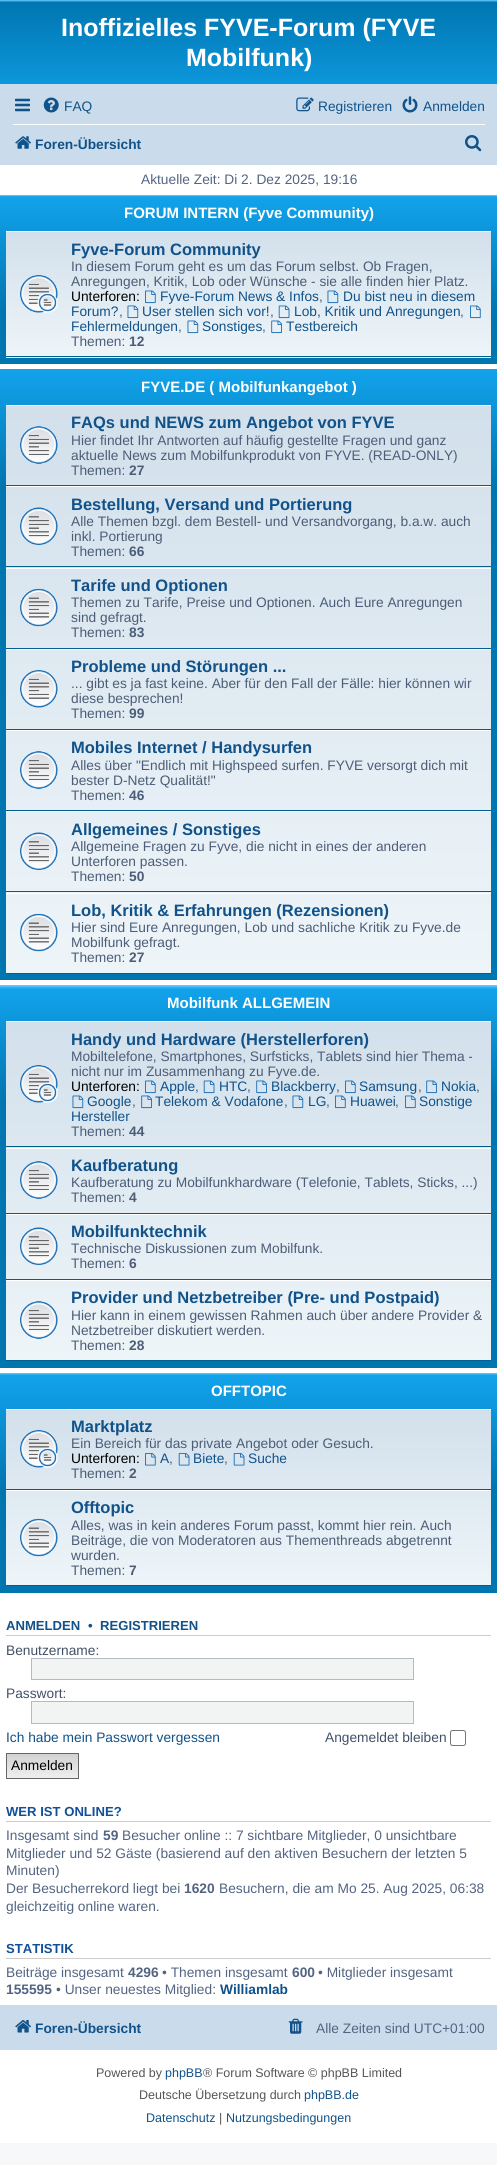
import math
import cairo


def round_path(ctx, x, y, w, h, r):
	ctx.new_sub_path()
	for i, (u, v) in enumerate([(x + w - r, y + h - r), (x + r, y + h - r), (x + r, y + r), (x + w - r, y + r)]):
		ctx.arc(u, v, r, i * math.pi / 2, (i + 1) * math.pi / 2)
	ctx.close_path()

def paste(ctx, path, x, y, w, h):
	ctx.save()
	ctx.set_source_surface(cairo.ImageSurface.create_from_png(path), x, y)
	ctx.rectangle(x, y, w, h)
	ctx.fill()
	ctx.restore()

def draw(ctx):
	ctx.set_source_rgb(0.961, 0.969, 0.98)
	ctx.paint()
	ctx.set_source_rgb(1, 1, 1)
	ctx.rectangle(0, 165, 497, 1978)
	ctx.fill()
	gradient = cairo.LinearGradient(249, 0, 249, 115)
	gradient.add_color_stop_rgba(0, 0.416, 0.808, 1, 1)
	gradient.add_color_stop_rgba(0.02, 0, 0.463, 0.694, 1)
	gradient.add_color_stop_rgba(1, 0.071, 0.639, 0.922, 1)
	ctx.set_source(gradient)
	ctx.rectangle(0, 0, 497, 84)
	ctx.fill()
	ctx.select_font_face('Liberation Sans', cairo.FONT_SLANT_NORMAL, cairo.FONT_WEIGHT_BOLD)
	ctx.set_font_size(25)
	ctx.set_source_rgb(1, 1, 1)
	ctx.move_to(61, 36)
	ctx.show_text('Inoffizielles FYVE-Forum (FYVE')
	ctx.move_to(186, 66)
	ctx.show_text('Mobilfunk)')
	ctx.set_source_rgb(0.792, 0.863, 0.922)
	ctx.rectangle(0, 84, 497, 81)
	ctx.fill()
	paste(ctx, 'media/1.png', 15, 98, 15, 14)
	paste(ctx, 'media/2.png', 43, 97, 16, 16)
	ctx.select_font_face('Liberation Sans')
	ctx.set_font_size(13.75)
	ctx.set_source_rgb(0.063, 0.322, 0.537)
	ctx.move_to(64, 111)
	ctx.show_text('FAQ')
	paste(ctx, 'media/3.png', 296, 97, 18, 15)
	ctx.move_to(318, 111)
	ctx.show_text('Registrieren')
	paste(ctx, 'media/4.png', 402, 96, 16, 17)
	ctx.move_to(423, 111)
	ctx.show_text('Anmelden')
	ctx.set_source_rgb(1, 1, 1)
	ctx.rectangle(13, 124, 472, 1)
	ctx.fill()
	paste(ctx, 'media/5.png', 15, 136, 16, 13)
	ctx.select_font_face('Liberation Sans', cairo.FONT_SLANT_NORMAL, cairo.FONT_WEIGHT_BOLD)
	ctx.set_source_rgb(0.063, 0.322, 0.537)
	ctx.move_to(35, 149)
	ctx.show_text('Foren-Übersicht')
	paste(ctx, 'media/6.png', 465, 135, 17, 17)
	ctx.select_font_face('Liberation Sans')
	ctx.set_source_rgb(0.325, 0.392, 0.51)
	ctx.move_to(141, 184)
	ctx.show_text('Aktuelle Zeit: Di 2. Dez 2025, 19:16')
	gradient = cairo.LinearGradient(249, 195, 249, 364)
	gradient.add_color_stop_rgba(0, 0.416, 0.808, 1, 1)
	gradient.add_color_stop_rgba(0.01, 0.071, 0.639, 0.922, 1)
	gradient.add_color_stop_rgba(0.68, 0, 0.463, 0.694, 1)
	gradient.add_color_stop_rgba(1, 0, 0.463, 0.694, 1)
	ctx.set_source(gradient)
	ctx.rectangle(0, 195, 497, 169)
	ctx.fill()
	ctx.select_font_face('Liberation Sans', cairo.FONT_SLANT_NORMAL, cairo.FONT_WEIGHT_BOLD)
	ctx.set_font_size(15)
	ctx.set_source_rgb(1, 1, 1)
	ctx.move_to(124, 218)
	ctx.show_text('FORUM INTERN (Fyve Community)')
	gradient = cairo.LinearGradient(249, 231, 249, 358)
	gradient.add_color_stop_rgba(0, 0.824, 0.878, 0.922, 1)
	gradient.add_color_stop_rgba(1, 0.933, 0.961, 0.976, 1)
	ctx.set_source(gradient)
	ctx.rectangle(6, 232, 485, 126)
	ctx.fill()
	ctx.set_source_rgb(1, 1, 1)
	ctx.rectangle(6, 231, 485, 1)
	ctx.fill()
	ctx.set_source_rgb(0, 0.376, 0.561)
	ctx.rectangle(6, 356, 485, 1)
	ctx.fill()
	paste(ctx, 'media/7.png', 20, 275, 38, 38)
	ctx.set_font_size(16.5)
	ctx.set_source_rgb(0.063, 0.322, 0.537)
	ctx.move_to(71, 255)
	ctx.show_text('Fyve-Forum Community')
	ctx.select_font_face('Liberation Sans')
	ctx.set_font_size(13.75)
	ctx.set_source_rgb(0.298, 0.365, 0.467)
	ctx.move_to(71, 271)
	ctx.show_text('In diesem Forum geht es um das Forum selbst. Ob Fragen,')
	ctx.move_to(71, 286)
	ctx.show_text('Anregungen, Kritik, Lob oder Wünsche - sie alle finden hier Platz.')
	ctx.set_source_rgb(0, 0, 0)
	ctx.move_to(71, 301)
	ctx.show_text('Unterforen:')
	paste(ctx, 'media/8.png', 327, 290, 12, 14)
	ctx.set_source_rgb(0.063, 0.322, 0.537)
	ctx.move_to(343, 301)
	ctx.show_text('Du bist neu in diesem')
	ctx.move_to(71, 316)
	ctx.show_text('Forum?')
	paste(ctx, 'media/9.png', 145, 290, 11, 14)
	ctx.move_to(160, 301)
	ctx.show_text('Fyve-Forum News & Infos')
	ctx.set_source_rgb(0.298, 0.365, 0.467)
	ctx.move_to(319, 301)
	ctx.show_text(',')
	ctx.move_to(119, 316)
	ctx.show_text(',')
	paste(ctx, 'media/10.png', 127, 305, 12, 14)
	ctx.set_source_rgb(0.063, 0.322, 0.537)
	ctx.move_to(142, 316)
	ctx.show_text('User stellen sich vor!')
	ctx.set_source_rgb(0.298, 0.365, 0.467)
	ctx.move_to(270, 316)
	ctx.show_text(',')
	paste(ctx, 'media/11.png', 278, 305, 12, 14)
	ctx.set_source_rgb(0.063, 0.322, 0.537)
	ctx.move_to(294, 316)
	ctx.show_text('Lob, Kritik und Anregungen')
	ctx.set_source_rgb(0.298, 0.365, 0.467)
	ctx.move_to(460, 316)
	ctx.show_text(',')
	paste(ctx, 'media/12.png', 470, 305, 11, 14)
	ctx.set_source_rgb(0.063, 0.322, 0.537)
	ctx.move_to(71, 331)
	ctx.show_text('Fehlermeldungen')
	ctx.set_source_rgb(0.298, 0.365, 0.467)
	ctx.move_to(178, 331)
	ctx.show_text(',')
	paste(ctx, 'media/13.png', 187, 320, 12, 14)
	ctx.set_source_rgb(0.063, 0.322, 0.537)
	ctx.move_to(202, 331)
	ctx.show_text('Sonstiges')
	ctx.set_source_rgb(0.298, 0.365, 0.467)
	ctx.move_to(262, 331)
	ctx.show_text(',')
	paste(ctx, 'media/14.png', 271, 320, 11, 14)
	ctx.set_source_rgb(0.063, 0.322, 0.537)
	ctx.move_to(286, 331)
	ctx.show_text('Testbereich')
	ctx.set_source_rgb(0.298, 0.365, 0.467)
	ctx.move_to(71, 346)
	ctx.show_text('Themen:')
	ctx.select_font_face('Liberation Sans', cairo.FONT_SLANT_NORMAL, cairo.FONT_WEIGHT_BOLD)
	ctx.move_to(129, 346)
	ctx.show_text('12')
	gradient = cairo.LinearGradient(249, 369, 249, 980)
	gradient.add_color_stop_rgba(0, 0.416, 0.808, 1, 1)
	gradient.add_color_stop_rgba(0, 0.071, 0.639, 0.922, 1)
	gradient.add_color_stop_rgba(0.19, 0, 0.463, 0.694, 1)
	gradient.add_color_stop_rgba(1, 0, 0.463, 0.694, 1)
	ctx.set_source(gradient)
	ctx.rectangle(0, 369, 497, 611)
	ctx.fill()
	ctx.set_font_size(15)
	ctx.set_source_rgb(1, 1, 1)
	ctx.move_to(141, 392)
	ctx.show_text('FYVE.DE ( Mobilfunkangebot )')
	gradient = cairo.LinearGradient(249, 405, 249, 974)
	gradient.add_color_stop_rgba(0, 0.824, 0.878, 0.922, 1)
	gradient.add_color_stop_rgba(1, 0.933, 0.961, 0.976, 1)
	ctx.set_source(gradient)
	ctx.rectangle(6, 406, 485, 567)
	ctx.fill()
	ctx.set_source_rgb(1, 1, 1)
	ctx.rectangle(6, 405, 485, 1)
	ctx.fill()
	ctx.set_source_rgb(0, 0.376, 0.561)
	ctx.rectangle(6, 485, 485, 1)
	ctx.fill()
	paste(ctx, 'media/15.png', 20, 426, 38, 38)
	ctx.set_font_size(16.5)
	ctx.set_source_rgb(0.063, 0.322, 0.537)
	ctx.move_to(71, 428)
	ctx.show_text('FAQs und NEWS zum Angebot von FYVE')
	ctx.select_font_face('Liberation Sans')
	ctx.set_font_size(13.75)
	ctx.set_source_rgb(0.298, 0.365, 0.467)
	for x, y, s in [
		(71, 445, 'Hier findet Ihr Antworten auf häufig gestellte Fragen und ganz'),
		(71, 460, 'aktuelle News zum Mobilfunkprodukt von FYVE. (READ-ONLY)'),
		(71, 475, 'Themen:'),
	]:
		ctx.move_to(x, y)
		ctx.show_text(s)
	ctx.select_font_face('Liberation Sans', cairo.FONT_SLANT_NORMAL, cairo.FONT_WEIGHT_BOLD)
	ctx.move_to(129, 475)
	ctx.show_text('27')
	ctx.set_source_rgb(1, 1, 1)
	ctx.rectangle(6, 486, 485, 1)
	ctx.fill()
	ctx.set_source_rgb(0, 0.376, 0.561)
	ctx.rectangle(6, 566, 485, 1)
	ctx.fill()
	paste(ctx, 'media/16.png', 20, 507, 38, 38)
	ctx.set_font_size(16.5)
	ctx.set_source_rgb(0.063, 0.322, 0.537)
	ctx.move_to(71, 510)
	ctx.show_text('Bestellung, Versand und Portierung')
	ctx.select_font_face('Liberation Sans')
	ctx.set_font_size(13.75)
	ctx.set_source_rgb(0.298, 0.365, 0.467)
	for x, y, s in [
		(71, 526, 'Alle Themen bzgl. dem Bestell- und Versandvorgang, b.a.w. auch'),
		(71, 541, 'inkl. Portierung'),
		(71, 556, 'Themen:'),
	]:
		ctx.move_to(x, y)
		ctx.show_text(s)
	ctx.select_font_face('Liberation Sans', cairo.FONT_SLANT_NORMAL, cairo.FONT_WEIGHT_BOLD)
	ctx.move_to(129, 556)
	ctx.show_text('66')
	ctx.set_source_rgb(1, 1, 1)
	ctx.rectangle(6, 568, 485, 1)
	ctx.fill()
	ctx.set_source_rgb(0, 0.376, 0.561)
	ctx.rectangle(6, 648, 485, 1)
	ctx.fill()
	paste(ctx, 'media/17.png', 20, 588, 38, 39)
	ctx.set_font_size(16.5)
	ctx.set_source_rgb(0.063, 0.322, 0.537)
	ctx.move_to(71, 591)
	ctx.show_text('Tarife und Optionen')
	ctx.select_font_face('Liberation Sans')
	ctx.set_font_size(13.75)
	ctx.set_source_rgb(0.298, 0.365, 0.467)
	for x, y, s in [
		(71, 607, 'Themen zu Tarife, Preise und Optionen. Auch Eure Anregungen'),
		(71, 622, 'sind gefragt.'),
		(71, 637, 'Themen:'),
	]:
		ctx.move_to(x, y)
		ctx.show_text(s)
	ctx.select_font_face('Liberation Sans', cairo.FONT_SLANT_NORMAL, cairo.FONT_WEIGHT_BOLD)
	ctx.move_to(129, 637)
	ctx.show_text('83')
	ctx.set_source_rgb(1, 1, 1)
	ctx.rectangle(6, 649, 485, 1)
	ctx.fill()
	ctx.set_source_rgb(0, 0.376, 0.561)
	ctx.rectangle(6, 729, 485, 1)
	ctx.fill()
	paste(ctx, 'media/18.png', 20, 670, 38, 38)
	ctx.set_font_size(16.5)
	ctx.set_source_rgb(0.063, 0.322, 0.537)
	ctx.move_to(71, 672)
	ctx.show_text('Probleme und Störungen ...')
	ctx.select_font_face('Liberation Sans')
	ctx.set_font_size(13.75)
	ctx.set_source_rgb(0.298, 0.365, 0.467)
	for x, y, s in [
		(71, 688, '... gibt es ja fast keine. Aber für den Fall der Fälle: hier können wir'),
		(71, 703, 'diese besprechen!'),
		(71, 718, 'Themen:'),
	]:
		ctx.move_to(x, y)
		ctx.show_text(s)
	ctx.select_font_face('Liberation Sans', cairo.FONT_SLANT_NORMAL, cairo.FONT_WEIGHT_BOLD)
	ctx.move_to(129, 718)
	ctx.show_text('99')
	ctx.set_source_rgb(1, 1, 1)
	ctx.rectangle(6, 730, 485, 1)
	ctx.fill()
	ctx.set_source_rgb(0, 0.376, 0.561)
	ctx.rectangle(6, 810, 485, 1)
	ctx.fill()
	paste(ctx, 'media/19.png', 20, 751, 38, 38)
	ctx.set_font_size(16.5)
	ctx.set_source_rgb(0.063, 0.322, 0.537)
	ctx.move_to(71, 753)
	ctx.show_text('Mobiles Internet / Handysurfen')
	ctx.select_font_face('Liberation Sans')
	ctx.set_font_size(13.75)
	ctx.set_source_rgb(0.298, 0.365, 0.467)
	for x, y, s in [
		(71, 770, 'Alles über "Endlich mit Highspeed surfen. FYVE versorgt dich mit'),
		(71, 785, 'bester D-Netz Qualität!"'),
		(71, 800, 'Themen:'),
	]:
		ctx.move_to(x, y)
		ctx.show_text(s)
	ctx.select_font_face('Liberation Sans', cairo.FONT_SLANT_NORMAL, cairo.FONT_WEIGHT_BOLD)
	ctx.move_to(129, 800)
	ctx.show_text('46')
	ctx.set_source_rgb(1, 1, 1)
	ctx.rectangle(6, 811, 485, 1)
	ctx.fill()
	ctx.set_source_rgb(0, 0.376, 0.561)
	ctx.rectangle(6, 891, 485, 1)
	ctx.fill()
	paste(ctx, 'media/20.png', 20, 832, 38, 38)
	ctx.set_font_size(16.5)
	ctx.set_source_rgb(0.063, 0.322, 0.537)
	ctx.move_to(71, 835)
	ctx.show_text('Allgemeines / Sonstiges')
	ctx.select_font_face('Liberation Sans')
	ctx.set_font_size(13.75)
	ctx.set_source_rgb(0.298, 0.365, 0.467)
	for x, y, s in [
		(71, 851, 'Allgemeine Fragen zu Fyve, die nicht in eines der anderen'),
		(71, 866, 'Unterforen passen.'),
		(71, 881, 'Themen:'),
	]:
		ctx.move_to(x, y)
		ctx.show_text(s)
	ctx.select_font_face('Liberation Sans', cairo.FONT_SLANT_NORMAL, cairo.FONT_WEIGHT_BOLD)
	ctx.move_to(129, 881)
	ctx.show_text('50')
	ctx.set_source_rgb(1, 1, 1)
	ctx.rectangle(6, 893, 485, 1)
	ctx.fill()
	ctx.set_source_rgb(0, 0.376, 0.561)
	ctx.rectangle(6, 973, 485, 1)
	ctx.fill()
	paste(ctx, 'media/21.png', 20, 913, 38, 39)
	ctx.set_font_size(16.5)
	ctx.set_source_rgb(0.063, 0.322, 0.537)
	ctx.move_to(71, 916)
	ctx.show_text('Lob, Kritik & Erfahrungen (Rezensionen)')
	ctx.select_font_face('Liberation Sans')
	ctx.set_font_size(13.75)
	ctx.set_source_rgb(0.298, 0.365, 0.467)
	for x, y, s in [
		(71, 932, 'Hier sind Eure Anregungen, Lob und sachliche Kritik zu Fyve.de'),
		(71, 947, 'Mobilfunk gefragt.'),
		(71, 962, 'Themen:'),
	]:
		ctx.move_to(x, y)
		ctx.show_text(s)
	ctx.select_font_face('Liberation Sans', cairo.FONT_SLANT_NORMAL, cairo.FONT_WEIGHT_BOLD)
	ctx.move_to(129, 962)
	ctx.show_text('27')
	gradient = cairo.LinearGradient(249, 985, 249, 1368)
	gradient.add_color_stop_rgba(0, 0.416, 0.808, 1, 1)
	gradient.add_color_stop_rgba(0.01, 0.071, 0.639, 0.922, 1)
	gradient.add_color_stop_rgba(0.3, 0, 0.463, 0.694, 1)
	gradient.add_color_stop_rgba(1, 0, 0.463, 0.694, 1)
	ctx.set_source(gradient)
	ctx.rectangle(0, 985, 497, 383)
	ctx.fill()
	ctx.set_font_size(15)
	ctx.set_source_rgb(1, 1, 1)
	ctx.move_to(167, 1008)
	ctx.show_text('Mobilfunk ALLGEMEIN')
	gradient = cairo.LinearGradient(249, 1021, 249, 1361)
	gradient.add_color_stop_rgba(0, 0.824, 0.878, 0.922, 1)
	gradient.add_color_stop_rgba(1, 0.933, 0.961, 0.976, 1)
	ctx.set_source(gradient)
	ctx.rectangle(6, 1022, 485, 338)
	ctx.fill()
	ctx.set_source_rgb(1, 1, 1)
	ctx.rectangle(6, 1021, 485, 1)
	ctx.fill()
	ctx.set_source_rgb(0, 0.376, 0.561)
	ctx.rectangle(6, 1146, 485, 1)
	ctx.fill()
	paste(ctx, 'media/22.png', 20, 1065, 38, 38)
	ctx.set_font_size(16.5)
	ctx.set_source_rgb(0.063, 0.322, 0.537)
	ctx.move_to(71, 1045)
	ctx.show_text('Handy und Hardware (Herstellerforen)')
	ctx.select_font_face('Liberation Sans')
	ctx.set_font_size(13.75)
	ctx.set_source_rgb(0.298, 0.365, 0.467)
	ctx.move_to(71, 1061)
	ctx.show_text('Mobiltelefone, Smartphones, Surfsticks, Tablets sind hier Thema -')
	ctx.move_to(71, 1076)
	ctx.show_text('nicht nur im Zusammenhang zu Fyve.de.')
	ctx.set_source_rgb(0, 0, 0)
	ctx.move_to(71, 1091)
	ctx.show_text('Unterforen:')
	paste(ctx, 'media/23.png', 145, 1080, 11, 14)
	ctx.set_source_rgb(0.063, 0.322, 0.537)
	ctx.move_to(160, 1091)
	ctx.show_text('Apple')
	ctx.set_source_rgb(0.298, 0.365, 0.467)
	ctx.move_to(195, 1091)
	ctx.show_text(',')
	paste(ctx, 'media/24.png', 203, 1080, 12, 14)
	ctx.set_source_rgb(0.063, 0.322, 0.537)
	ctx.move_to(219, 1091)
	ctx.show_text('HTC')
	ctx.set_source_rgb(0.298, 0.365, 0.467)
	ctx.move_to(247, 1091)
	ctx.show_text(',')
	paste(ctx, 'media/25.png', 256, 1080, 11, 14)
	ctx.set_source_rgb(0.063, 0.322, 0.537)
	ctx.move_to(271, 1091)
	ctx.show_text('Blackberry')
	ctx.set_source_rgb(0.298, 0.365, 0.467)
	ctx.move_to(336, 1091)
	ctx.show_text(',')
	paste(ctx, 'media/23.png', 345, 1080, 11, 14)
	ctx.set_source_rgb(0.063, 0.322, 0.537)
	ctx.move_to(359, 1091)
	ctx.show_text('Samsung')
	ctx.set_source_rgb(0.298, 0.365, 0.467)
	ctx.move_to(418, 1091)
	ctx.show_text(',')
	paste(ctx, 'media/25.png', 426, 1080, 11, 14)
	ctx.set_source_rgb(0.063, 0.322, 0.537)
	ctx.move_to(441, 1091)
	ctx.show_text('Nokia')
	ctx.set_source_rgb(0.298, 0.365, 0.467)
	ctx.move_to(476, 1091)
	ctx.show_text(',')
	paste(ctx, 'media/26.png', 405, 1095, 11, 14)
	ctx.set_source_rgb(0.063, 0.322, 0.537)
	ctx.move_to(419, 1106)
	ctx.show_text('Sonstige')
	ctx.move_to(71, 1121)
	ctx.show_text('Hersteller')
	paste(ctx, 'media/27.png', 72, 1095, 12, 14)
	ctx.move_to(87, 1106)
	ctx.show_text('Google')
	ctx.set_source_rgb(0.298, 0.365, 0.467)
	ctx.move_to(132, 1106)
	ctx.show_text(',')
	paste(ctx, 'media/28.png', 141, 1095, 11, 14)
	ctx.set_source_rgb(0.063, 0.322, 0.537)
	ctx.move_to(155, 1106)
	ctx.show_text('Telekom & Vodafone')
	ctx.set_source_rgb(0.298, 0.365, 0.467)
	ctx.move_to(284, 1106)
	ctx.show_text(',')
	paste(ctx, 'media/27.png', 292, 1095, 12, 14)
	ctx.set_source_rgb(0.063, 0.322, 0.537)
	ctx.move_to(308, 1106)
	ctx.show_text('LG')
	ctx.set_source_rgb(0.298, 0.365, 0.467)
	ctx.move_to(326, 1106)
	ctx.show_text(',')
	paste(ctx, 'media/26.png', 335, 1095, 11, 14)
	ctx.set_source_rgb(0.063, 0.322, 0.537)
	ctx.move_to(350, 1106)
	ctx.show_text('Huawei')
	ctx.set_source_rgb(0.298, 0.365, 0.467)
	ctx.move_to(395, 1106)
	ctx.show_text(',')
	ctx.move_to(71, 1136)
	ctx.show_text('Themen:')
	ctx.select_font_face('Liberation Sans', cairo.FONT_SLANT_NORMAL, cairo.FONT_WEIGHT_BOLD)
	ctx.move_to(129, 1136)
	ctx.show_text('44')
	ctx.set_source_rgb(1, 1, 1)
	ctx.rectangle(6, 1148, 485, 1)
	ctx.fill()
	ctx.set_source_rgb(0, 0.376, 0.561)
	ctx.rectangle(6, 1213, 485, 1)
	ctx.fill()
	paste(ctx, 'media/29.png', 20, 1161, 38, 38)
	ctx.set_font_size(16.5)
	ctx.set_source_rgb(0.063, 0.322, 0.537)
	ctx.move_to(71, 1171)
	ctx.show_text('Kaufberatung')
	ctx.select_font_face('Liberation Sans')
	ctx.set_font_size(13.75)
	ctx.set_source_rgb(0.298, 0.365, 0.467)
	ctx.move_to(71, 1187)
	ctx.show_text('Kaufberatung zu Mobilfunkhardware (Telefonie, Tablets, Sticks, ...)')
	ctx.move_to(71, 1202)
	ctx.show_text('Themen:')
	ctx.select_font_face('Liberation Sans', cairo.FONT_SLANT_NORMAL, cairo.FONT_WEIGHT_BOLD)
	ctx.move_to(129, 1202)
	ctx.show_text('4')
	ctx.set_source_rgb(1, 1, 1)
	ctx.rectangle(6, 1214, 485, 1)
	ctx.fill()
	ctx.set_source_rgb(0, 0.376, 0.561)
	ctx.rectangle(6, 1279, 485, 1)
	ctx.fill()
	paste(ctx, 'media/30.png', 20, 1227, 38, 38)
	ctx.set_font_size(16.5)
	ctx.set_source_rgb(0.063, 0.322, 0.537)
	ctx.move_to(71, 1237)
	ctx.show_text('Mobilfunktechnik')
	ctx.select_font_face('Liberation Sans')
	ctx.set_font_size(13.75)
	ctx.set_source_rgb(0.298, 0.365, 0.467)
	ctx.move_to(71, 1253)
	ctx.show_text('Technische Diskussionen zum Mobilfunk.')
	ctx.move_to(71, 1268)
	ctx.show_text('Themen:')
	ctx.select_font_face('Liberation Sans', cairo.FONT_SLANT_NORMAL, cairo.FONT_WEIGHT_BOLD)
	ctx.move_to(129, 1268)
	ctx.show_text('6')
	ctx.set_source_rgb(1, 1, 1)
	ctx.rectangle(6, 1280, 485, 1)
	ctx.fill()
	ctx.set_source_rgb(0, 0.376, 0.561)
	ctx.rectangle(6, 1360, 485, 1)
	ctx.fill()
	paste(ctx, 'media/31.png', 20, 1301, 38, 38)
	ctx.set_font_size(16.5)
	ctx.set_source_rgb(0.063, 0.322, 0.537)
	ctx.move_to(71, 1303)
	ctx.show_text('Provider und Netzbetreiber (Pre- und Postpaid)')
	ctx.select_font_face('Liberation Sans')
	ctx.set_font_size(13.75)
	ctx.set_source_rgb(0.298, 0.365, 0.467)
	for x, y, s in [
		(71, 1320, 'Hier kann in einem gewissen Rahmen auch über andere Provider &'),
		(71, 1335, 'Netzbetreiber diskutiert werden.'),
		(71, 1350, 'Themen:'),
	]:
		ctx.move_to(x, y)
		ctx.show_text(s)
	ctx.select_font_face('Liberation Sans', cairo.FONT_SLANT_NORMAL, cairo.FONT_WEIGHT_BOLD)
	ctx.move_to(129, 1350)
	ctx.show_text('28')
	gradient = cairo.LinearGradient(249, 1373, 249, 1593)
	gradient.add_color_stop_rgba(0, 0.416, 0.808, 1, 1)
	gradient.add_color_stop_rgba(0.01, 0.071, 0.639, 0.922, 1)
	gradient.add_color_stop_rgba(0.52, 0, 0.463, 0.694, 1)
	gradient.add_color_stop_rgba(1, 0, 0.463, 0.694, 1)
	ctx.set_source(gradient)
	ctx.rectangle(0, 1373, 497, 220)
	ctx.fill()
	ctx.set_font_size(15)
	ctx.set_source_rgb(1, 1, 1)
	ctx.move_to(211, 1396)
	ctx.show_text('OFFTOPIC')
	gradient = cairo.LinearGradient(249, 1409, 249, 1586)
	gradient.add_color_stop_rgba(0, 0.824, 0.878, 0.922, 1)
	gradient.add_color_stop_rgba(1, 0.933, 0.961, 0.976, 1)
	ctx.set_source(gradient)
	ctx.rectangle(6, 1410, 485, 175)
	ctx.fill()
	ctx.set_source_rgb(1, 1, 1)
	ctx.rectangle(6, 1409, 485, 1)
	ctx.fill()
	ctx.set_source_rgb(0, 0.376, 0.561)
	ctx.rectangle(6, 1489, 485, 1)
	ctx.fill()
	paste(ctx, 'media/32.png', 20, 1430, 38, 38)
	ctx.set_font_size(16.5)
	ctx.set_source_rgb(0.063, 0.322, 0.537)
	ctx.move_to(71, 1432)
	ctx.show_text('Marktplatz')
	ctx.select_font_face('Liberation Sans')
	ctx.set_font_size(13.75)
	ctx.set_source_rgb(0.298, 0.365, 0.467)
	ctx.move_to(71, 1448)
	ctx.show_text('Ein Bereich für das private Angebot oder Gesuch.')
	ctx.set_source_rgb(0, 0, 0)
	ctx.move_to(71, 1463)
	ctx.show_text('Unterforen:')
	paste(ctx, 'media/33.png', 145, 1453, 11, 13)
	ctx.set_source_rgb(0.063, 0.322, 0.537)
	ctx.move_to(160, 1463)
	ctx.show_text('A')
	ctx.set_source_rgb(0.298, 0.365, 0.467)
	ctx.move_to(169, 1463)
	ctx.show_text(',')
	paste(ctx, 'media/34.png', 178, 1453, 12, 13)
	ctx.set_source_rgb(0.063, 0.322, 0.537)
	ctx.move_to(193, 1463)
	ctx.show_text('Biete')
	ctx.set_source_rgb(0.298, 0.365, 0.467)
	ctx.move_to(224, 1463)
	ctx.show_text(',')
	paste(ctx, 'media/34.png', 233, 1453, 12, 13)
	ctx.set_source_rgb(0.063, 0.322, 0.537)
	ctx.move_to(248, 1463)
	ctx.show_text('Suche')
	ctx.set_source_rgb(0.298, 0.365, 0.467)
	ctx.move_to(71, 1478)
	ctx.show_text('Themen:')
	ctx.select_font_face('Liberation Sans', cairo.FONT_SLANT_NORMAL, cairo.FONT_WEIGHT_BOLD)
	ctx.move_to(129, 1478)
	ctx.show_text('2')
	ctx.set_source_rgb(1, 1, 1)
	ctx.rectangle(6, 1490, 485, 1)
	ctx.fill()
	ctx.set_source_rgb(0, 0.376, 0.561)
	ctx.rectangle(6, 1585, 485, 1)
	ctx.fill()
	paste(ctx, 'media/35.png', 20, 1518, 38, 39)
	ctx.set_font_size(16.5)
	ctx.set_source_rgb(0.063, 0.322, 0.537)
	ctx.move_to(71, 1513)
	ctx.show_text('Offtopic')
	ctx.select_font_face('Liberation Sans')
	ctx.set_font_size(13.75)
	ctx.set_source_rgb(0.298, 0.365, 0.467)
	for x, y, s in [
		(71, 1530, 'Alles, was in kein anderes Forum passt, kommt hier rein. Auch'),
		(71, 1545, 'Beiträge, die von Moderatoren aus Thementhreads abgetrennt'),
		(71, 1560, 'wurden.'),
		(71, 1575, 'Themen:'),
	]:
		ctx.move_to(x, y)
		ctx.show_text(s)
	ctx.select_font_face('Liberation Sans', cairo.FONT_SLANT_NORMAL, cairo.FONT_WEIGHT_BOLD)
	ctx.move_to(129, 1575)
	ctx.show_text('7')
	ctx.set_source_rgb(0.8, 0.8, 0.8)
	ctx.rectangle(6, 1635, 485, 1)
	ctx.fill()
	ctx.set_font_size(13.1)
	ctx.set_source_rgb(0.063, 0.322, 0.537)
	ctx.move_to(6, 1630)
	ctx.show_text('ANMELDEN')
	ctx.set_source_rgb(0.067, 0.314, 0.596)
	ctx.move_to(88, 1630)
	ctx.show_text('•')
	ctx.set_source_rgb(0.063, 0.322, 0.537)
	ctx.move_to(100, 1630)
	ctx.show_text('REGISTRIEREN')
	ctx.select_font_face('Liberation Sans')
	ctx.set_font_size(13.75)
	ctx.set_source_rgb(0.259, 0.314, 0.404)
	ctx.move_to(6, 1655)
	ctx.show_text('Benutzername:')
	ctx.set_source_rgb(0.949, 0.953, 0.953)
	ctx.rectangle(31.5, 1658.5, 382, 21)
	ctx.fill_preserve()
	ctx.set_source_rgb(0.706, 0.729, 0.753)
	ctx.set_line_width(1)
	ctx.stroke()
	ctx.set_source_rgb(0.259, 0.314, 0.404)
	ctx.move_to(6, 1698)
	ctx.show_text('Passwort:')
	ctx.set_source_rgb(0.949, 0.953, 0.953)
	ctx.rectangle(31.5, 1701.5, 382, 22)
	ctx.fill_preserve()
	ctx.set_source_rgb(0.706, 0.729, 0.753)
	ctx.stroke()
	ctx.set_source_rgb(0.063, 0.322, 0.537)
	ctx.move_to(6, 1742)
	ctx.show_text('Ich habe mein Passwort vergessen')
	ctx.set_source_rgb(0.259, 0.314, 0.404)
	ctx.move_to(325, 1742)
	ctx.show_text('Angemeldet bleiben')
	round_path(ctx, 450.5, 1730.5, 15, 15, 2)
	ctx.set_source_rgb(0.463, 0.463, 0.463)
	ctx.stroke()
	gradient = cairo.LinearGradient(43, 1754, 43, 1778)
	gradient.add_color_stop_rgba(0, 0.824, 0.824, 0.824, 1)
	gradient.add_color_stop_rgba(1, 0.937, 0.937, 0.937, 1)
	ctx.set_source(gradient)
	ctx.rectangle(7, 1754, 71, 24)
	ctx.fill()
	ctx.rectangle(6.5, 1753.5, 72, 25)
	ctx.set_source_rgb(0.4, 0.4, 0.4)
	ctx.stroke()
	ctx.set_source_rgb(0, 0, 0)
	ctx.move_to(11, 1770)
	ctx.show_text('Anmelden')
	ctx.set_source_rgb(0.8, 0.8, 0.8)
	ctx.rectangle(6, 1821, 485, 1)
	ctx.fill()
	ctx.select_font_face('Liberation Sans', cairo.FONT_SLANT_NORMAL, cairo.FONT_WEIGHT_BOLD)
	ctx.set_font_size(13.1)
	ctx.set_source_rgb(0.067, 0.314, 0.596)
	ctx.move_to(6, 1816)
	ctx.show_text('WER IST ONLINE?')
	ctx.select_font_face('Liberation Sans')
	ctx.set_font_size(13.75)
	ctx.set_source_rgb(0.325, 0.392, 0.51)
	ctx.move_to(6, 1840)
	ctx.show_text('Insgesamt sind')
	ctx.select_font_face('Liberation Sans', cairo.FONT_SLANT_NORMAL, cairo.FONT_WEIGHT_BOLD)
	ctx.move_to(103, 1840)
	ctx.show_text('59')
	ctx.select_font_face('Liberation Sans')
	for x, y, s in [
		(122, 1840, 'Besucher online :: 7 sichtbare Mitglieder, 0 unsichtbare'),
		(6, 1858, 'Mitglieder und 52 Gäste (basierend auf den aktiven Besuchern der letzten 5'),
		(6, 1875, 'Minuten)'),
		(6, 1893, 'Der Besucherrekord liegt bei'),
	]:
		ctx.move_to(x, y)
		ctx.show_text(s)
	ctx.select_font_face('Liberation Sans', cairo.FONT_SLANT_NORMAL, cairo.FONT_WEIGHT_BOLD)
	ctx.move_to(184, 1893)
	ctx.show_text('1620')
	ctx.select_font_face('Liberation Sans')
	ctx.move_to(219, 1893)
	ctx.show_text('Besuchern, die am Mo 25. Aug 2025, 06:38')
	ctx.move_to(6, 1911)
	ctx.show_text('gleichzeitig online waren.')
	ctx.set_source_rgb(0.8, 0.8, 0.8)
	ctx.rectangle(6, 1958, 485, 1)
	ctx.fill()
	ctx.select_font_face('Liberation Sans', cairo.FONT_SLANT_NORMAL, cairo.FONT_WEIGHT_BOLD)
	ctx.set_font_size(13.1)
	ctx.set_source_rgb(0.067, 0.314, 0.596)
	ctx.move_to(6, 1953)
	ctx.show_text('STATISTIK')
	ctx.select_font_face('Liberation Sans')
	ctx.set_font_size(13.75)
	ctx.set_source_rgb(0.325, 0.392, 0.51)
	ctx.move_to(6, 1977)
	ctx.show_text('Beiträge insgesamt')
	ctx.select_font_face('Liberation Sans', cairo.FONT_SLANT_NORMAL, cairo.FONT_WEIGHT_BOLD)
	ctx.move_to(128, 1977)
	ctx.show_text('4296')
	ctx.select_font_face('Liberation Sans')
	ctx.move_to(162, 1977)
	ctx.show_text('• Themen insgesamt')
	ctx.select_font_face('Liberation Sans', cairo.FONT_SLANT_NORMAL, cairo.FONT_WEIGHT_BOLD)
	ctx.move_to(292, 1977)
	ctx.show_text('600')
	ctx.select_font_face('Liberation Sans')
	ctx.move_to(318, 1977)
	ctx.show_text('• Mitglieder insgesamt')
	ctx.select_font_face('Liberation Sans', cairo.FONT_SLANT_NORMAL, cairo.FONT_WEIGHT_BOLD)
	ctx.move_to(6, 1994)
	ctx.show_text('155595')
	ctx.select_font_face('Liberation Sans')
	ctx.move_to(56, 1994)
	ctx.show_text('• Unser neuestes Mitglied:')
	ctx.select_font_face('Liberation Sans', cairo.FONT_SLANT_NORMAL, cairo.FONT_WEIGHT_BOLD)
	ctx.set_source_rgb(0.063, 0.322, 0.537)
	ctx.move_to(220, 1994)
	ctx.show_text('Williamlab')
	ctx.set_source_rgb(0.792, 0.863, 0.922)
	ctx.rectangle(0, 2005, 497, 45)
	ctx.fill()
	paste(ctx, 'media/36.png', 15, 2020, 16, 13)
	ctx.set_source_rgb(0.063, 0.322, 0.537)
	ctx.move_to(35, 2033)
	ctx.show_text('Foren-Übersicht')
	paste(ctx, 'media/37.png', 288, 2018, 15, 16)
	ctx.select_font_face('Liberation Sans')
	ctx.set_source_rgb(0.325, 0.392, 0.51)
	ctx.move_to(316, 2033)
	ctx.show_text('Alle Zeiten sind UTC+01:00')
	ctx.set_font_size(12.5)
	ctx.set_source_rgb(0.333, 0.333, 0.333)
	ctx.move_to(96, 2077)
	ctx.show_text('Powered by')
	ctx.set_source_rgb(0.063, 0.322, 0.537)
	ctx.move_to(165, 2077)
	ctx.show_text('phpBB')
	ctx.set_source_rgb(0.333, 0.333, 0.333)
	ctx.move_to(203, 2077)
	ctx.show_text('® Forum Software © phpBB Limited')
	ctx.move_to(139, 2099)
	ctx.show_text('Deutsche Übersetzung durch')
	ctx.set_source_rgb(0.063, 0.322, 0.537)
	ctx.move_to(304, 2099)
	ctx.show_text('phpBB.de')
	ctx.move_to(146, 2122)
	ctx.show_text('Datenschutz')
	ctx.set_source_rgb(0.333, 0.333, 0.333)
	ctx.move_to(219, 2122)
	ctx.show_text('|')
	ctx.set_source_rgb(0.063, 0.322, 0.537)
	ctx.move_to(226, 2122)
	ctx.show_text('Nutzungsbedingungen')


surface = cairo.ImageSurface(cairo.FORMAT_RGB24, 497, 2165)
ctx = cairo.Context(surface)
options = cairo.FontOptions()
options.set_hint_metrics(cairo.HINT_METRICS_OFF)
options.set_hint_style(cairo.HINT_STYLE_NONE)
ctx.set_font_options(options)
ctx.set_miter_limit(4)
draw(ctx)
surface.write_to_png('image.png')
